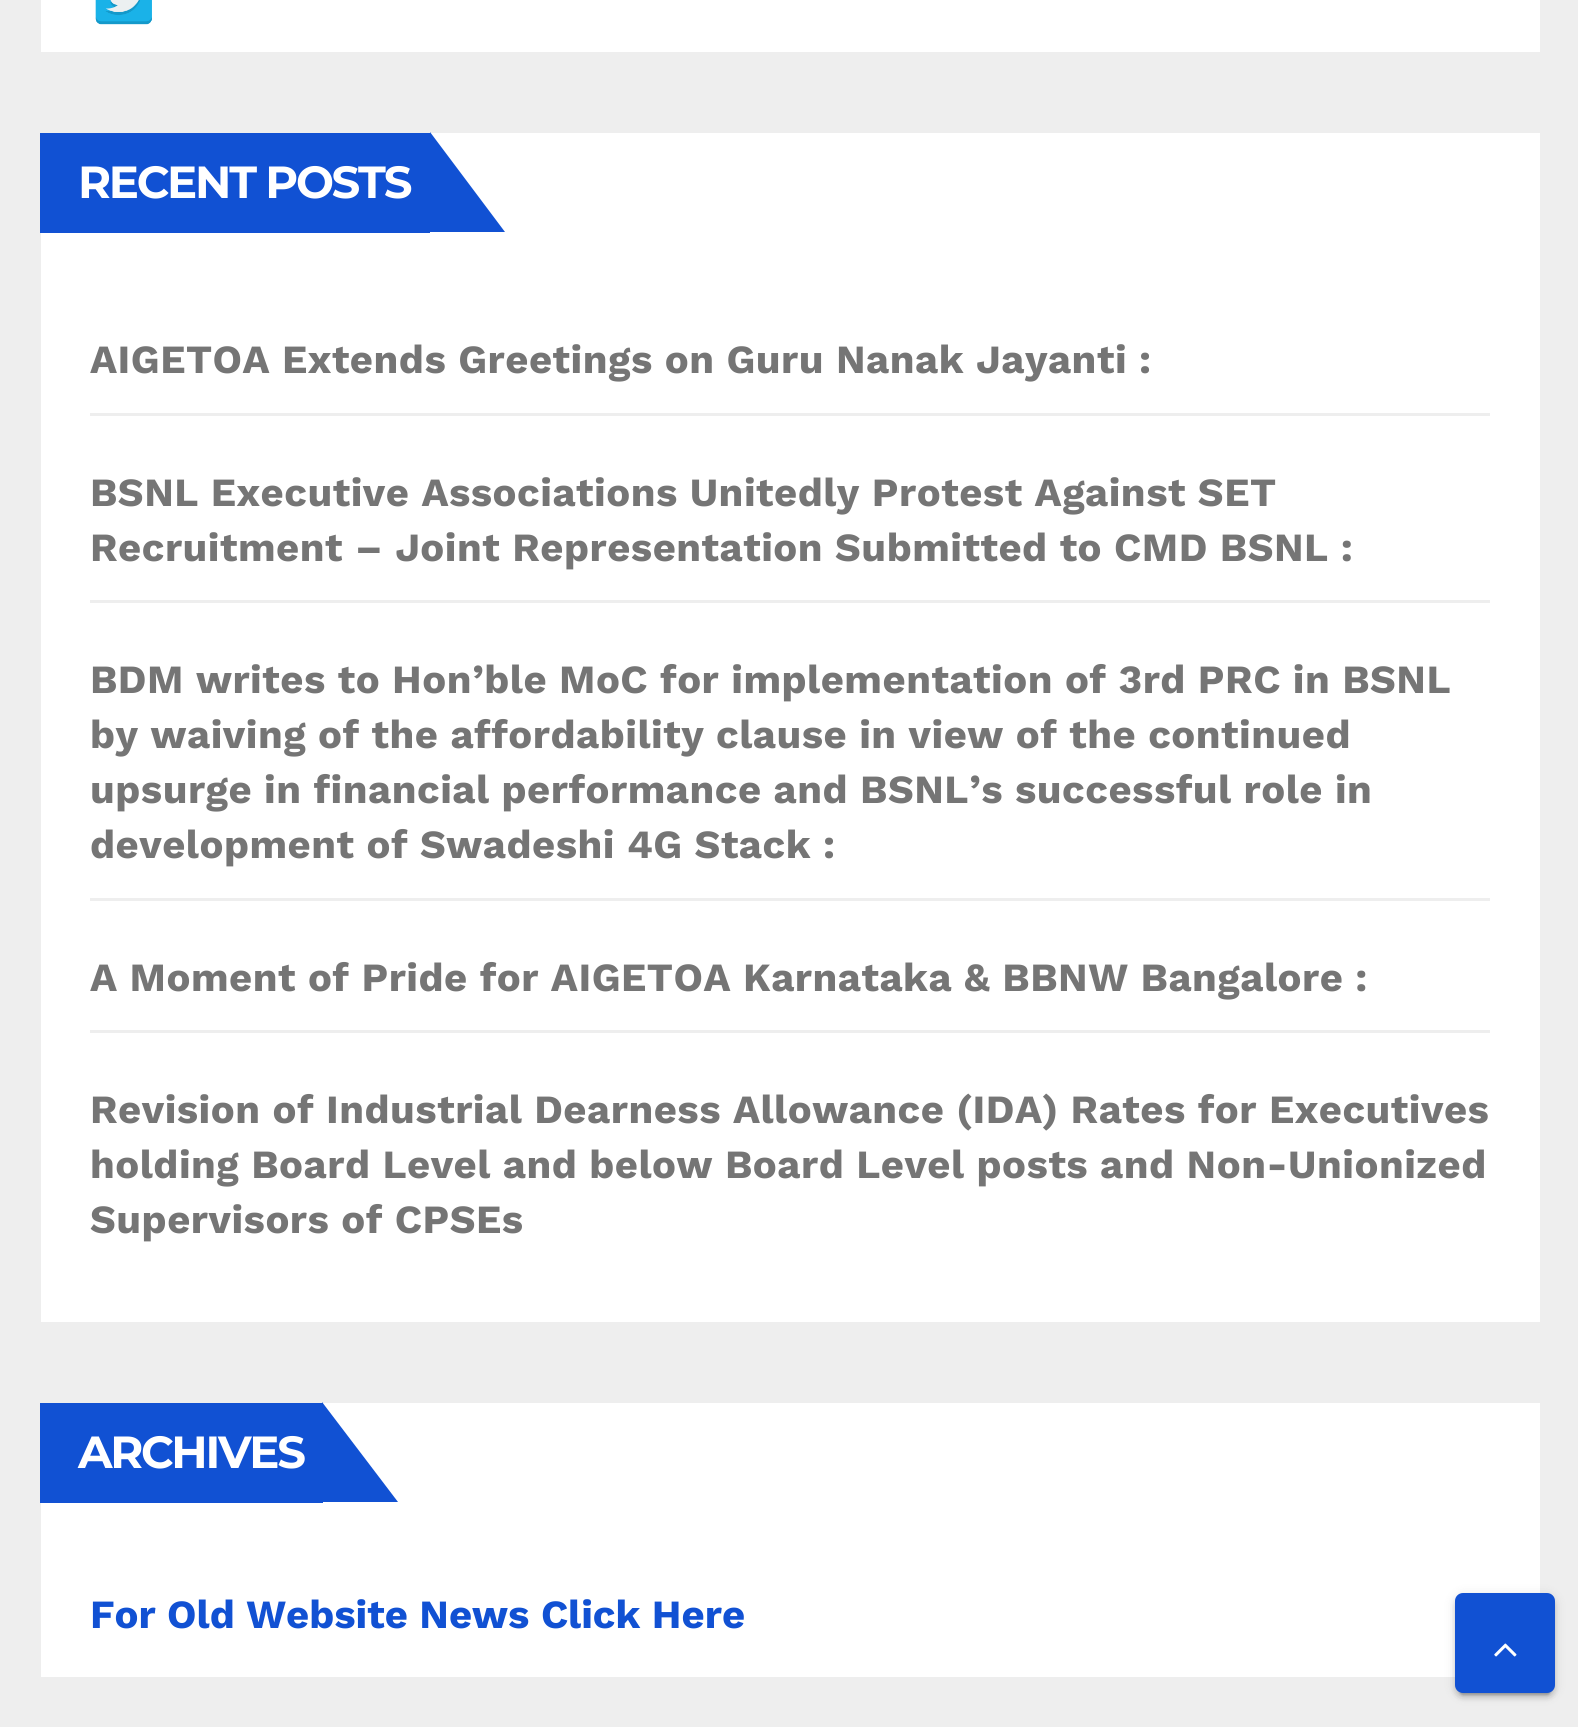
import math
import cairo


def write_spaced(ctx, x, y, s, letter, word):
	ctx.move_to(x, y)
	for ch in s:
		ctx.show_text(ch)
		ctx.rel_move_to(letter + word * (ch == ' '), 0)

def round_path(ctx, x, y, w, h, r):
	ctx.new_sub_path()
	for i, (u, v) in enumerate([(x + w - r, y + h - r), (x + r, y + h - r), (x + r, y + r), (x + w - r, y + r)]):
		ctx.arc(u, v, r, i * math.pi / 2, (i + 1) * math.pi / 2)
	ctx.close_path()

def blur_box(ctx, x, y, w, h, r, blur, alpha):
	ctx.push_group_with_content(cairo.CONTENT_ALPHA)
	ctx.set_operator(cairo.OPERATOR_SOURCE)
	for i in range(15, -16, -2):
		e = blur * i / 6
		if min(w, h) + 2 * e > 0:
			ctx.set_source_rgba(0, 0, 0, alpha * math.erfc((i - 1) / 8.5) / 2)
			round_path(ctx, x - e, y - e, w + 2 * e, h + 2 * e, max(0, min(r + e + blur * .6, min(w, h) / 2 + e)))
			ctx.fill()
	ctx.mask(ctx.pop_group())

def paste(ctx, path, x, y, w, h):
	ctx.save()
	ctx.set_source_surface(cairo.ImageSurface.create_from_png(path), x, y)
	ctx.rectangle(x, y, w, h)
	ctx.fill()
	ctx.restore()

def draw(ctx):
	ctx.set_source_rgb(0.933, 0.933, 0.933)
	ctx.paint()
	ctx.set_source_rgb(1, 1, 1)
	ctx.rectangle(41, 0, 1499, 52)
	ctx.fill()
	paste(ctx, 'media/1.png', 95, 0, 57, 25)
	ctx.rectangle(41, 133, 1499, 1189)
	ctx.fill()
	ctx.set_source_rgb(0.067, 0.318, 0.827)
	ctx.rectangle(40, 133, 390, 100)
	ctx.fill()
	ctx.select_font_face('Montserrat', cairo.FONT_SLANT_NORMAL, cairo.FONT_WEIGHT_BOLD)
	ctx.set_font_size(45)
	ctx.set_source_rgb(1, 1, 1)
	write_spaced(ctx, 78, 198, 'RECENT POSTS', -2.25, 0)
	ctx.set_source_rgb(0.067, 0.318, 0.827)
	ctx.new_path()
	ctx.move_to(430, 232)
	ctx.line_to(430, 132)
	ctx.line_to(505, 232)
	ctx.close_path()
	ctx.fill()
	ctx.set_source_rgb(0.933, 0.933, 0.933)
	ctx.rectangle(90, 413, 1400, 3)
	ctx.fill()
	ctx.select_font_face('Work Sans', cairo.FONT_SLANT_NORMAL, cairo.FONT_WEIGHT_BOLD)
	ctx.set_font_size(40)
	ctx.set_source_rgb(0.459, 0.459, 0.459)
	write_spaced(ctx, 90, 373, 'AIGETOA Extends Greetings on Guru Nanak Jayanti :', 0.5, 0)
	ctx.set_source_rgb(0.933, 0.933, 0.933)
	ctx.rectangle(90, 600, 1400, 3)
	ctx.fill()
	ctx.set_source_rgb(0.459, 0.459, 0.459)
	write_spaced(ctx, 90, 506, 'BSNL Executive Associations Unitedly Protest Against SET', 0.5, 0)
	write_spaced(ctx, 90, 561, 'Recruitment – Joint Representation Submitted to CMD BSNL :', 0.5, 0)
	ctx.set_source_rgb(0.933, 0.933, 0.933)
	ctx.rectangle(90, 898, 1400, 3)
	ctx.fill()
	ctx.set_source_rgb(0.459, 0.459, 0.459)
	for x, y, s in [
		(90, 693, 'BDM writes to Hon’ble MoC for implementation of 3rd PRC in BSNL'),
		(90, 748, 'by waiving of the affordability clause in view of the continued'),
		(90, 803, 'upsurge in financial performance and BSNL’s successful role in'),
		(90, 858, 'development of Swadeshi 4G Stack :'),
	]:
		write_spaced(ctx, x, y, s, 0.5, 0)
	ctx.set_source_rgb(0.933, 0.933, 0.933)
	ctx.rectangle(90, 1030, 1400, 3)
	ctx.fill()
	ctx.set_source_rgb(0.459, 0.459, 0.459)
	for x, y, s in [
		(90, 991, 'A Moment of Pride for AIGETOA Karnataka & BBNW Bangalore :'),
		(90, 1123, 'Revision of Industrial Dearness Allowance (IDA) Rates for Executives'),
		(90, 1178, 'holding Board Level and below Board Level posts and Non-Unionized'),
		(90, 1233, 'Supervisors of CPSEs'),
	]:
		write_spaced(ctx, x, y, s, 0.5, 0)
	ctx.set_source_rgb(1, 1, 1)
	ctx.rectangle(41, 1403, 1499, 274)
	ctx.fill()
	ctx.set_source_rgb(0.067, 0.318, 0.827)
	ctx.rectangle(40, 1403, 283, 100)
	ctx.fill()
	ctx.select_font_face('Montserrat', cairo.FONT_SLANT_NORMAL, cairo.FONT_WEIGHT_BOLD)
	ctx.set_font_size(45)
	ctx.set_source_rgb(1, 1, 1)
	write_spaced(ctx, 78, 1468, 'ARCHIVES', -2.25, 0)
	ctx.set_source_rgb(0.067, 0.318, 0.827)
	ctx.new_path()
	ctx.move_to(322, 1502)
	ctx.line_to(322, 1402)
	ctx.line_to(398, 1502)
	ctx.close_path()
	ctx.fill()
	ctx.select_font_face('Work Sans', cairo.FONT_SLANT_NORMAL, cairo.FONT_WEIGHT_BOLD)
	ctx.set_font_size(40)
	ctx.move_to(90, 1628)
	ctx.show_text('For Old Website News Click Here')
	ctx.set_source_rgb(0, 0, 0)
	blur_box(ctx, 1455, 1595, 100, 100, 8, 6, 0.12)
	blur_box(ctx, 1460, 1605, 90, 90, 2.5, 1, 0.2)
	blur_box(ctx, 1455, 1598, 100, 100, 8, 2.5, 0.14)
	ctx.set_source_rgb(0.067, 0.318, 0.827)
	round_path(ctx, 1457.5, 1595.5, 95, 95, 5.5)
	ctx.fill_preserve()
	ctx.set_line_width(5)
	ctx.stroke()
	paste(ctx, 'media/2.png', 1494, 1643, 23, 14)


surface = cairo.ImageSurface(cairo.FORMAT_RGB24, 1578, 1727)
ctx = cairo.Context(surface)
options = cairo.FontOptions()
options.set_hint_metrics(cairo.HINT_METRICS_OFF)
options.set_hint_style(cairo.HINT_STYLE_NONE)
ctx.set_font_options(options)
ctx.set_miter_limit(4)
draw(ctx)
surface.write_to_png('image.png')
